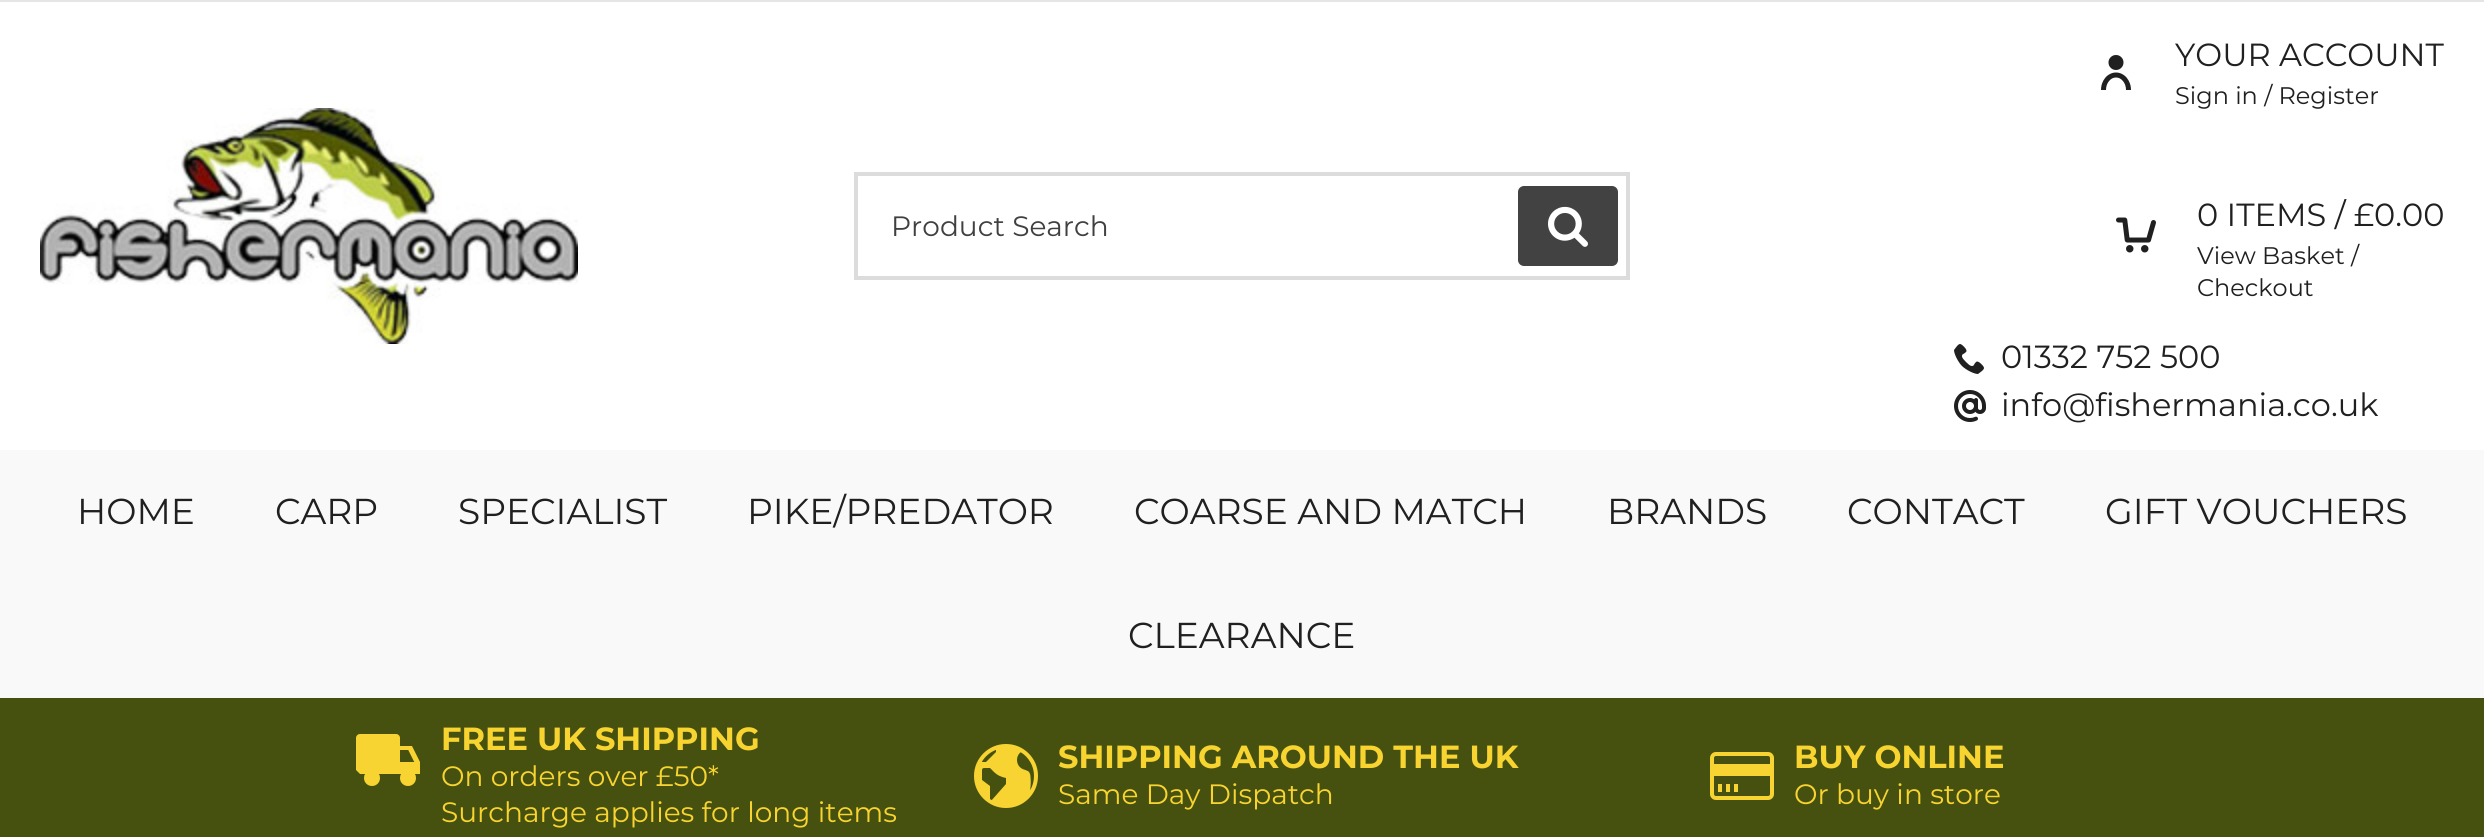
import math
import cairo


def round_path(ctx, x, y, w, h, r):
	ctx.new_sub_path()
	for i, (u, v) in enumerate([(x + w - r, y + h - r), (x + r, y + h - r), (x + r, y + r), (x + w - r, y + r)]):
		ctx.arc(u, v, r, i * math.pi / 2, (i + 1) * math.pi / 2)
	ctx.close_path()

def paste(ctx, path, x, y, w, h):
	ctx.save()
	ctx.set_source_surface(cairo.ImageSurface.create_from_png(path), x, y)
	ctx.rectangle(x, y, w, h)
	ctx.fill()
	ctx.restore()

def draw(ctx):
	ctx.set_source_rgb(1, 1, 1)
	ctx.paint()
	ctx.set_source_rgb(0.898, 0.898, 0.898)
	ctx.rectangle(0, 0, 2484, 2)
	ctx.fill()
	paste(ctx, 'media/1.png', 40, 108, 538, 236)
	ctx.rectangle(856, 174, 772, 104)
	ctx.set_source_rgb(0.863, 0.863, 0.863)
	ctx.set_line_width(4)
	ctx.stroke()
	ctx.select_font_face('Montserrat')
	ctx.set_font_size(28)
	ctx.set_source_rgb(0.251, 0.251, 0.251)
	ctx.move_to(891, 236)
	ctx.show_text('Product Search')
	ctx.set_source_rgb(0.259, 0.259, 0.259)
	round_path(ctx, 1518, 186, 100, 80, 6)
	ctx.fill()
	paste(ctx, 'media/2.png', 1548, 206, 40, 41)
	paste(ctx, 'media/3.png', 2101, 55, 30, 35)
	ctx.set_font_size(32)
	ctx.set_source_rgb(0.125, 0.125, 0.125)
	ctx.move_to(2175, 66)
	ctx.show_text('YOUR ACCOUNT')
	ctx.set_font_size(24)
	ctx.move_to(2175, 104)
	ctx.show_text('Sign in / Register')
	paste(ctx, 'media/4.png', 2116, 217, 40, 36)
	ctx.set_font_size(32)
	ctx.move_to(2197, 226)
	ctx.show_text('0 ITEMS / £0.00')
	ctx.set_font_size(24)
	ctx.move_to(2197, 264)
	ctx.show_text('View Basket /')
	ctx.move_to(2197, 296)
	ctx.show_text('Checkout')
	paste(ctx, 'media/5.png', 1954, 344, 30, 30)
	ctx.set_font_size(32)
	ctx.move_to(2001, 368)
	ctx.show_text('01332 752 500')
	paste(ctx, 'media/6.png', 1954, 390, 32, 32)
	ctx.move_to(2001, 416)
	ctx.show_text('info@fishermania.co.uk')
	ctx.set_source_rgb(0.973, 0.973, 0.973)
	ctx.rectangle(0, 450, 2484, 248)
	ctx.fill()
	ctx.set_font_size(36)
	ctx.set_source_rgb(0.125, 0.125, 0.125)
	for x, y, s in [
		(77, 524, 'HOME'),
		(275, 524, 'CARP'),
		(458, 524, 'SPECIALIST'),
		(747, 524, 'PIKE/PREDATOR'),
		(1134, 524, 'COARSE AND MATCH'),
		(1607, 524, 'BRANDS'),
		(1847, 524, 'CONTACT'),
		(2105, 524, 'GIFT VOUCHERS'),
		(1128, 648, 'CLEARANCE'),
	]:
		ctx.move_to(x, y)
		ctx.show_text(s)
	ctx.set_source_rgb(0.278, 0.318, 0.059)
	ctx.rectangle(0, 698, 2484, 139)
	ctx.fill()
	paste(ctx, 'media/7.png', 356, 734, 64, 52)
	ctx.select_font_face('Montserrat', cairo.FONT_SLANT_NORMAL, cairo.FONT_WEIGHT_BOLD)
	ctx.set_font_size(32)
	ctx.set_source_rgb(0.969, 0.831, 0.192)
	ctx.move_to(441, 750)
	ctx.show_text('FREE UK SHIPPING')
	ctx.select_font_face('Montserrat')
	ctx.set_font_size(28)
	ctx.move_to(441, 786)
	ctx.show_text('On orders over £50*')
	ctx.move_to(441, 822)
	ctx.show_text('Surcharge applies for long items')
	paste(ctx, 'media/8.png', 974, 744, 64, 64)
	ctx.select_font_face('Montserrat', cairo.FONT_SLANT_NORMAL, cairo.FONT_WEIGHT_BOLD)
	ctx.set_font_size(32)
	ctx.move_to(1058, 768)
	ctx.show_text('SHIPPING AROUND THE UK')
	ctx.select_font_face('Montserrat')
	ctx.set_font_size(28)
	ctx.move_to(1058, 804)
	ctx.show_text('Same Day Dispatch')
	paste(ctx, 'media/9.png', 1710, 752, 64, 48)
	ctx.select_font_face('Montserrat', cairo.FONT_SLANT_NORMAL, cairo.FONT_WEIGHT_BOLD)
	ctx.set_font_size(32)
	ctx.move_to(1794, 768)
	ctx.show_text('BUY ONLINE')
	ctx.select_font_face('Montserrat')
	ctx.set_font_size(28)
	ctx.move_to(1794, 804)
	ctx.show_text('Or buy in store')


surface = cairo.ImageSurface(cairo.FORMAT_RGB24, 2484, 837)
ctx = cairo.Context(surface)
options = cairo.FontOptions()
options.set_hint_metrics(cairo.HINT_METRICS_OFF)
options.set_hint_style(cairo.HINT_STYLE_NONE)
ctx.set_font_options(options)
ctx.set_miter_limit(4)
draw(ctx)
surface.write_to_png('image.png')
